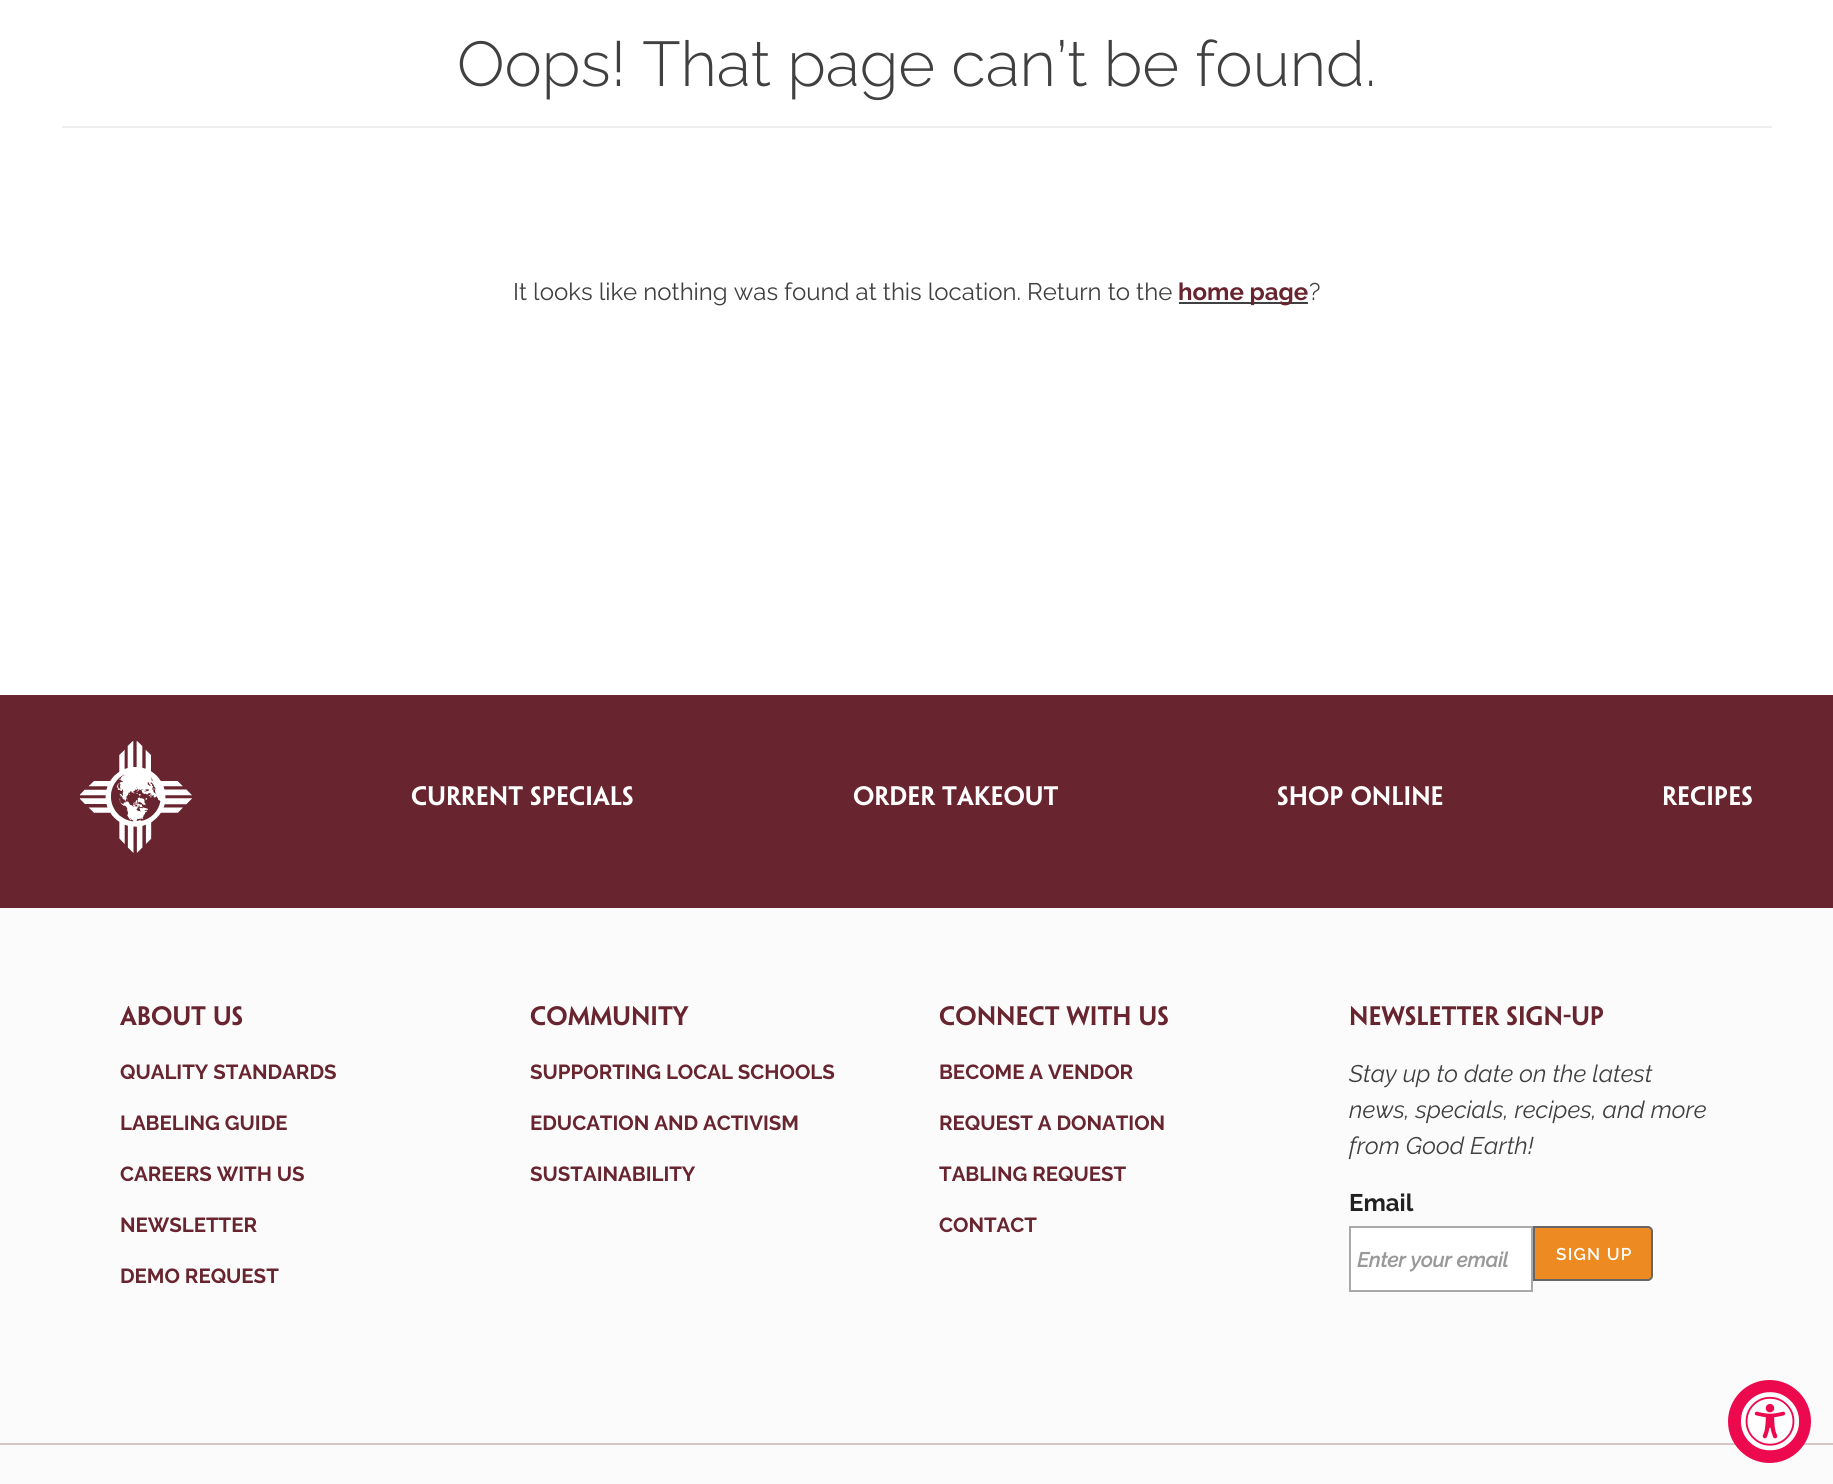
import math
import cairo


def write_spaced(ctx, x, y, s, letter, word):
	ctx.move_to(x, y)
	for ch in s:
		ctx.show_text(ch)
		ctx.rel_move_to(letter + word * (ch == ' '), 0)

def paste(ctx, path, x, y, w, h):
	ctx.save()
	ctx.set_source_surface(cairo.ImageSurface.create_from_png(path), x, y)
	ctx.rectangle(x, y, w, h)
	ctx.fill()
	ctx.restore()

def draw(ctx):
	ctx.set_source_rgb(1, 1, 1)
	ctx.paint()
	ctx.set_source_rgb(0.933, 0.933, 0.933)
	ctx.rectangle(62, 126, 1710, 2)
	ctx.fill()
	ctx.select_font_face('Raleway Light')
	ctx.set_font_size(63.1)
	ctx.set_source_rgb(0.251, 0.251, 0.251)
	ctx.move_to(457, 86)
	ctx.show_text('Oops! That page can’t be found.')
	ctx.select_font_face('Raleway')
	ctx.set_font_size(24)
	ctx.move_to(513, 300)
	ctx.show_text('It looks like nothing was found at this location. Return to the')
	ctx.rectangle(1179, 302, 129, 2)
	ctx.fill()
	ctx.select_font_face('Raleway', cairo.FONT_SLANT_NORMAL, cairo.FONT_WEIGHT_BOLD)
	ctx.set_source_rgb(0.408, 0.145, 0.184)
	ctx.move_to(1178, 300)
	ctx.show_text('home page')
	ctx.select_font_face('Raleway')
	ctx.set_source_rgb(0.251, 0.251, 0.251)
	ctx.move_to(1309, 300)
	ctx.show_text('?')
	ctx.set_source_rgb(0.984, 0.984, 0.984)
	ctx.rectangle(0, 908, 1833, 576)
	ctx.fill()
	ctx.set_source_rgb(0.408, 0.145, 0.184)
	ctx.rectangle(0, 695, 1833, 213)
	ctx.fill()
	paste(ctx, 'media/1.png', 80, 741, 112, 112)
	ctx.select_font_face('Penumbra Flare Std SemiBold')
	ctx.set_source_rgb(1, 1, 1)
	for x, y, s in [
		(411, 805, 'CURRENT SPECIALS'),
		(853, 805, 'ORDER TAKEOUT'),
		(1277, 805, 'SHOP ONLINE'),
		(1662, 805, 'RECIPES'),
	]:
		ctx.move_to(x, y)
		ctx.show_text(s)
	ctx.set_source_rgb(0.408, 0.145, 0.184)
	ctx.move_to(120, 1025)
	ctx.show_text('ABOUT US')
	ctx.select_font_face('Raleway', cairo.FONT_SLANT_NORMAL, cairo.FONT_WEIGHT_BOLD)
	ctx.set_font_size(20.4)
	for x, y, s in [
		(120, 1079, 'QUALITY STANDARDS'),
		(120, 1130, 'LABELING GUIDE'),
		(120, 1181, 'CAREERS WITH US'),
		(120, 1232, 'NEWSLETTER'),
		(120, 1283, 'DEMO REQUEST'),
	]:
		ctx.move_to(x, y)
		ctx.show_text(s)
	ctx.select_font_face('Penumbra Flare Std SemiBold')
	ctx.set_font_size(24)
	ctx.move_to(530, 1025)
	ctx.show_text('COMMUNITY')
	ctx.select_font_face('Raleway', cairo.FONT_SLANT_NORMAL, cairo.FONT_WEIGHT_BOLD)
	ctx.set_font_size(20.4)
	for x, y, s in [
		(530, 1079, 'SUPPORTING LOCAL SCHOOLS'),
		(530, 1130, 'EDUCATION AND ACTIVISM'),
		(530, 1181, 'SUSTAINABILITY'),
	]:
		ctx.move_to(x, y)
		ctx.show_text(s)
	ctx.select_font_face('Penumbra Flare Std SemiBold')
	ctx.set_font_size(24)
	ctx.move_to(939, 1025)
	ctx.show_text('CONNECT WITH US')
	ctx.select_font_face('Raleway', cairo.FONT_SLANT_NORMAL, cairo.FONT_WEIGHT_BOLD)
	ctx.set_font_size(20.4)
	for x, y, s in [
		(939, 1079, 'BECOME A VENDOR'),
		(939, 1130, 'REQUEST A DONATION'),
		(939, 1181, 'TABLING REQUEST'),
		(939, 1232, 'CONTACT'),
	]:
		ctx.move_to(x, y)
		ctx.show_text(s)
	ctx.select_font_face('Penumbra Flare Std SemiBold')
	ctx.set_font_size(24)
	ctx.move_to(1349, 1025)
	ctx.show_text('NEWSLETTER SIGN-UP')
	ctx.select_font_face('Raleway Thin', cairo.FONT_SLANT_ITALIC)
	ctx.set_source_rgb(0.251, 0.251, 0.251)
	for x, y, s in [
		(1349, 1082, 'Stay up to date on the latest'),
		(1349, 1118, 'news, specials, recipes, and more'),
		(1349, 1154, 'from Good Earth!'),
	]:
		ctx.move_to(x, y)
		ctx.show_text(s)
	ctx.select_font_face('Raleway', cairo.FONT_SLANT_NORMAL, cairo.FONT_WEIGHT_BOLD)
	ctx.set_source_rgb(0.129, 0.129, 0.129)
	ctx.move_to(1349, 1211)
	ctx.show_text('Email')
	ctx.set_source_rgb(1, 1, 1)
	ctx.rectangle(1350, 1227, 182, 64)
	ctx.fill_preserve()
	ctx.set_source_rgb(0.663, 0.663, 0.663)
	ctx.stroke()
	ctx.select_font_face('Raleway', cairo.FONT_SLANT_ITALIC, cairo.FONT_WEIGHT_BOLD)
	ctx.set_font_size(20.4)
	ctx.set_source_rgb(0.6, 0.6, 0.6)
	ctx.move_to(1357, 1267)
	ctx.show_text('Enter your email')
	ctx.set_source_rgb(0.929, 0.541, 0.133)
	ctx.new_path()
	ctx.move_to(1534, 1227)
	ctx.line_to(1648, 1227)
	ctx.curve_to(1650, 1227, 1652, 1229, 1652, 1231)
	ctx.line_to(1652, 1276)
	ctx.curve_to(1652, 1278, 1650, 1280, 1648, 1280)
	ctx.line_to(1534, 1280)
	ctx.close_path()
	ctx.fill_preserve()
	ctx.set_source_rgb(0.4, 0.4, 0.4)
	ctx.stroke()
	ctx.select_font_face('Raleway SemiBold')
	ctx.set_font_size(17)
	ctx.set_source_rgb(1, 1, 1)
	write_spaced(ctx, 1556, 1260, 'SIGN UP', 1.25, 0)
	ctx.set_source_rgb(0.839, 0.776, 0.784)
	ctx.rectangle(0, 1443, 1833, 2)
	ctx.fill()
	ctx.set_source_rgb(0.925, 0.039, 0.302)
	ctx.arc(1769.5, 1421.5, 41.5, 0, 2 * math.pi)
	ctx.fill()
	paste(ctx, 'media/2.png', 1740, 1392, 60, 59)


surface = cairo.ImageSurface(cairo.FORMAT_RGB24, 1833, 1484)
ctx = cairo.Context(surface)
options = cairo.FontOptions()
options.set_hint_metrics(cairo.HINT_METRICS_OFF)
options.set_hint_style(cairo.HINT_STYLE_NONE)
ctx.set_font_options(options)
ctx.set_miter_limit(4)
draw(ctx)
surface.write_to_png('image.png')
